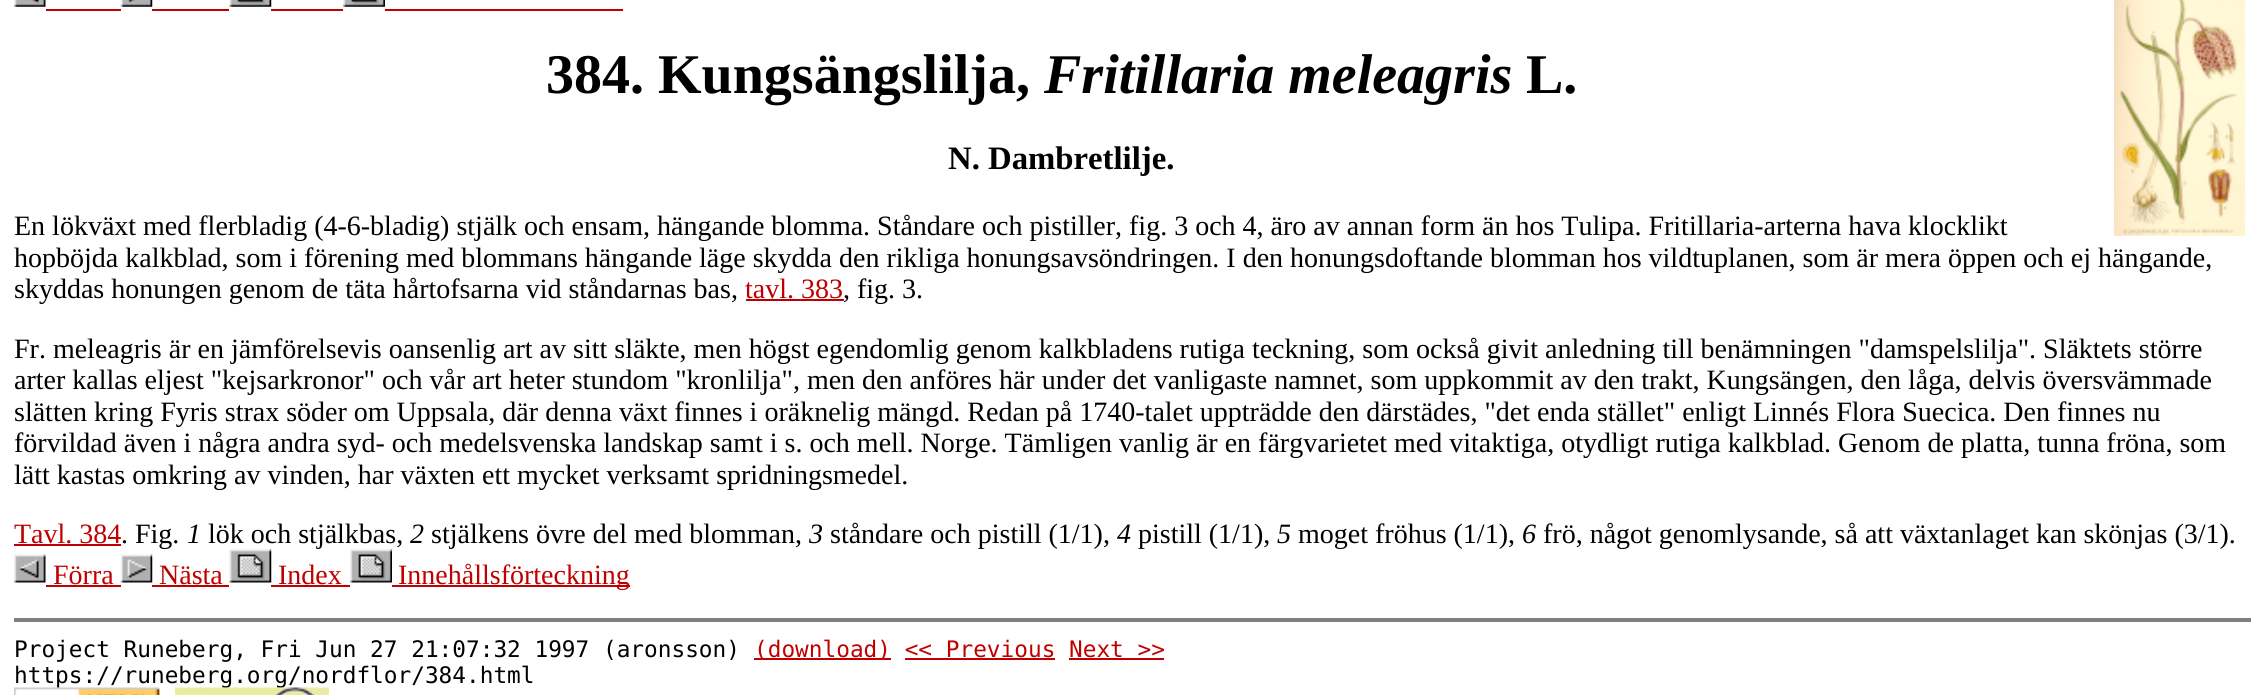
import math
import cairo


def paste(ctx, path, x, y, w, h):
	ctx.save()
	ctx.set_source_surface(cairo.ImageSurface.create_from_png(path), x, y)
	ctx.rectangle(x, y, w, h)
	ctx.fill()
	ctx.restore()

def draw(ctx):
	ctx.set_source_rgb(1, 1, 1)
	ctx.paint()
	paste(ctx, 'media/1.png', 14, 0, 32, 7)
	ctx.set_source_rgb(0.753, 0, 0)
	ctx.rectangle(46, 9, 75, 2)
	ctx.fill()
	paste(ctx, 'media/2.png', 120, 0, 33, 7)
	ctx.rectangle(152, 9, 77, 2)
	ctx.fill()
	paste(ctx, 'media/3.png', 229, 0, 43, 7)
	ctx.rectangle(271, 9, 72, 2)
	ctx.fill()
	paste(ctx, 'media/4.png', 343, 0, 42, 7)
	ctx.rectangle(385, 9, 238, 2)
	ctx.fill()
	paste(ctx, 'media/5.png', 2114, 0, 132, 236)
	ctx.select_font_face('Liberation Serif', cairo.FONT_SLANT_NORMAL, cairo.FONT_WEIGHT_BOLD)
	ctx.set_font_size(56)
	ctx.set_source_rgb(0, 0, 0)
	ctx.move_to(546, 93)
	ctx.show_text('384. Kungsängslilja,')
	ctx.select_font_face('Liberation Serif', cairo.FONT_SLANT_ITALIC, cairo.FONT_WEIGHT_BOLD)
	ctx.move_to(1044, 93)
	ctx.show_text('Fritillaria meleagris')
	ctx.select_font_face('Liberation Serif', cairo.FONT_SLANT_NORMAL, cairo.FONT_WEIGHT_BOLD)
	ctx.move_to(1526, 93)
	ctx.show_text('L.')
	ctx.set_font_size(32.75)
	ctx.move_to(948, 169)
	ctx.show_text('N. Dambretlilje.')
	ctx.select_font_face('Liberation Serif')
	ctx.set_font_size(28)
	for x, y, s in [
		(14, 235, 'En lökväxt med flerbladig (4-6-bladig) stjälk och ensam, hängande blomma. Ståndare och pistiller, fig. 3 och 4, äro av annan form än hos Tulipa. Fritillaria-arterna hava klocklikt'),
		(14, 267, 'hopböjda kalkblad, som i förening med blommans hängande läge skydda den rikliga honungsavsöndringen. I den honungsdoftande blomman hos vildtuplanen, som är mera öppen och ej hängande,'),
		(14, 298, 'skyddas honungen genom de täta hårtofsarna vid ståndarnas bas,'),
	]:
		ctx.move_to(x, y)
		ctx.show_text(s)
	ctx.set_source_rgb(0.753, 0, 0)
	ctx.move_to(745, 298)
	ctx.show_text('tavl. 383')
	ctx.rectangle(746, 299, 98, 2)
	ctx.fill()
	ctx.set_source_rgb(0, 0, 0)
	for x, y, s in [
		(843, 298, ', fig. 3.'),
		(14, 358, 'Fr. meleagris är en jämförelsevis oansenlig art av sitt släkte, men högst egendomlig genom kalkbladens rutiga teckning, som också givit anledning till benämningen "damspelslilja". Släktets större'),
		(14, 389, 'arter kallas eljest "kejsarkronor" och vår art heter stundom "kronlilja", men den anföres här under det vanligaste namnet, som uppkommit av den trakt, Kungsängen, den låga, delvis översvämmade'),
		(14, 421, 'slätten kring Fyris strax söder om Uppsala, där denna växt finnes i oräknelig mängd. Redan på 1740-talet uppträdde den därstädes, "det enda stället" enligt Linnés Flora Suecica. Den finnes nu'),
		(14, 452, 'förvildad även i några andra syd- och medelsvenska landskap samt i s. och mell. Norge. Tämligen vanlig är en färgvarietet med vitaktiga, otydligt rutiga kalkblad. Genom de platta, tunna fröna, som'),
		(14, 484, 'lätt kastas omkring av vinden, har växten ett mycket verksamt spridningsmedel.'),
	]:
		ctx.move_to(x, y)
		ctx.show_text(s)
	ctx.set_source_rgb(0.753, 0, 0)
	ctx.move_to(14, 543)
	ctx.show_text('Tavl. 384')
	ctx.rectangle(14, 544, 107, 2)
	ctx.fill()
	ctx.set_source_rgb(0, 0, 0)
	ctx.move_to(121, 543)
	ctx.show_text('. Fig.')
	ctx.select_font_face('Liberation Serif', cairo.FONT_SLANT_ITALIC)
	ctx.move_to(187, 543)
	ctx.show_text('1')
	ctx.select_font_face('Liberation Serif')
	ctx.move_to(208, 543)
	ctx.show_text('lök och stjälkbas,')
	ctx.select_font_face('Liberation Serif', cairo.FONT_SLANT_ITALIC)
	ctx.move_to(410, 543)
	ctx.show_text('2')
	ctx.select_font_face('Liberation Serif')
	ctx.move_to(431, 543)
	ctx.show_text('stjälkens övre del med blomman,')
	ctx.select_font_face('Liberation Serif', cairo.FONT_SLANT_ITALIC)
	ctx.move_to(809, 543)
	ctx.show_text('3')
	ctx.select_font_face('Liberation Serif')
	ctx.move_to(830, 543)
	ctx.show_text('ståndare och pistill (1/1),')
	ctx.select_font_face('Liberation Serif', cairo.FONT_SLANT_ITALIC)
	ctx.move_to(1117, 543)
	ctx.show_text('4')
	ctx.select_font_face('Liberation Serif')
	ctx.move_to(1138, 543)
	ctx.show_text('pistill (1/1),')
	ctx.select_font_face('Liberation Serif', cairo.FONT_SLANT_ITALIC)
	ctx.move_to(1277, 543)
	ctx.show_text('5')
	ctx.select_font_face('Liberation Serif')
	ctx.move_to(1298, 543)
	ctx.show_text('moget fröhus (1/1),')
	ctx.select_font_face('Liberation Serif', cairo.FONT_SLANT_ITALIC)
	ctx.move_to(1522, 543)
	ctx.show_text('6')
	ctx.select_font_face('Liberation Serif')
	ctx.move_to(1543, 543)
	ctx.show_text('frö, något genomlysande, så att växtanlaget kan skönjas (3/1).')
	paste(ctx, 'media/6.png', 14, 554, 32, 29)
	ctx.set_source_rgb(0.753, 0, 0)
	ctx.move_to(53, 584)
	ctx.show_text('Förra')
	ctx.rectangle(46, 585, 75, 2)
	ctx.fill()
	paste(ctx, 'media/7.png', 120, 554, 33, 29)
	ctx.move_to(159, 584)
	ctx.show_text('Nästa')
	ctx.rectangle(152, 585, 77, 2)
	ctx.fill()
	paste(ctx, 'media/8.png', 229, 549, 43, 34)
	ctx.move_to(278, 584)
	ctx.show_text('Index')
	ctx.rectangle(271, 585, 79, 2)
	ctx.fill()
	paste(ctx, 'media/9.png', 350, 549, 42, 34)
	ctx.rectangle(392, 585, 238, 2)
	ctx.fill()
	ctx.move_to(398, 584)
	ctx.show_text('Innehållsförteckning')
	ctx.set_source_rgb(0.502, 0.502, 0.502)
	ctx.rectangle(14, 618, 2237, 4)
	ctx.fill()
	ctx.select_font_face('DejaVu Sans Mono')
	ctx.set_font_size(22.75)
	ctx.set_source_rgb(0, 0, 0)
	ctx.move_to(14, 657)
	ctx.show_text('Project Runeberg, Fri Jun 27 21:07:32 1997 (aronsson)')
	ctx.set_source_rgb(0.753, 0, 0)
	ctx.rectangle(754, 658, 137, 2)
	ctx.fill()
	ctx.move_to(754, 657)
	ctx.show_text('(download) << Previous Next >>')
	ctx.rectangle(905, 658, 150, 2)
	ctx.fill()
	ctx.rectangle(1069, 658, 95, 2)
	ctx.fill()
	ctx.set_source_rgb(0, 0, 0)
	ctx.move_to(14, 683)
	ctx.show_text('https://runeberg.org/nordflor/384.html')
	paste(ctx, 'media/10.png', 14, 687, 146, 8)
	paste(ctx, 'media/11.png', 175, 687, 154, 8)


surface = cairo.ImageSurface(cairo.FORMAT_RGB24, 2264, 695)
ctx = cairo.Context(surface)
options = cairo.FontOptions()
options.set_hint_metrics(cairo.HINT_METRICS_OFF)
options.set_hint_style(cairo.HINT_STYLE_NONE)
ctx.set_font_options(options)
ctx.set_miter_limit(4)
draw(ctx)
surface.write_to_png('image.png')
